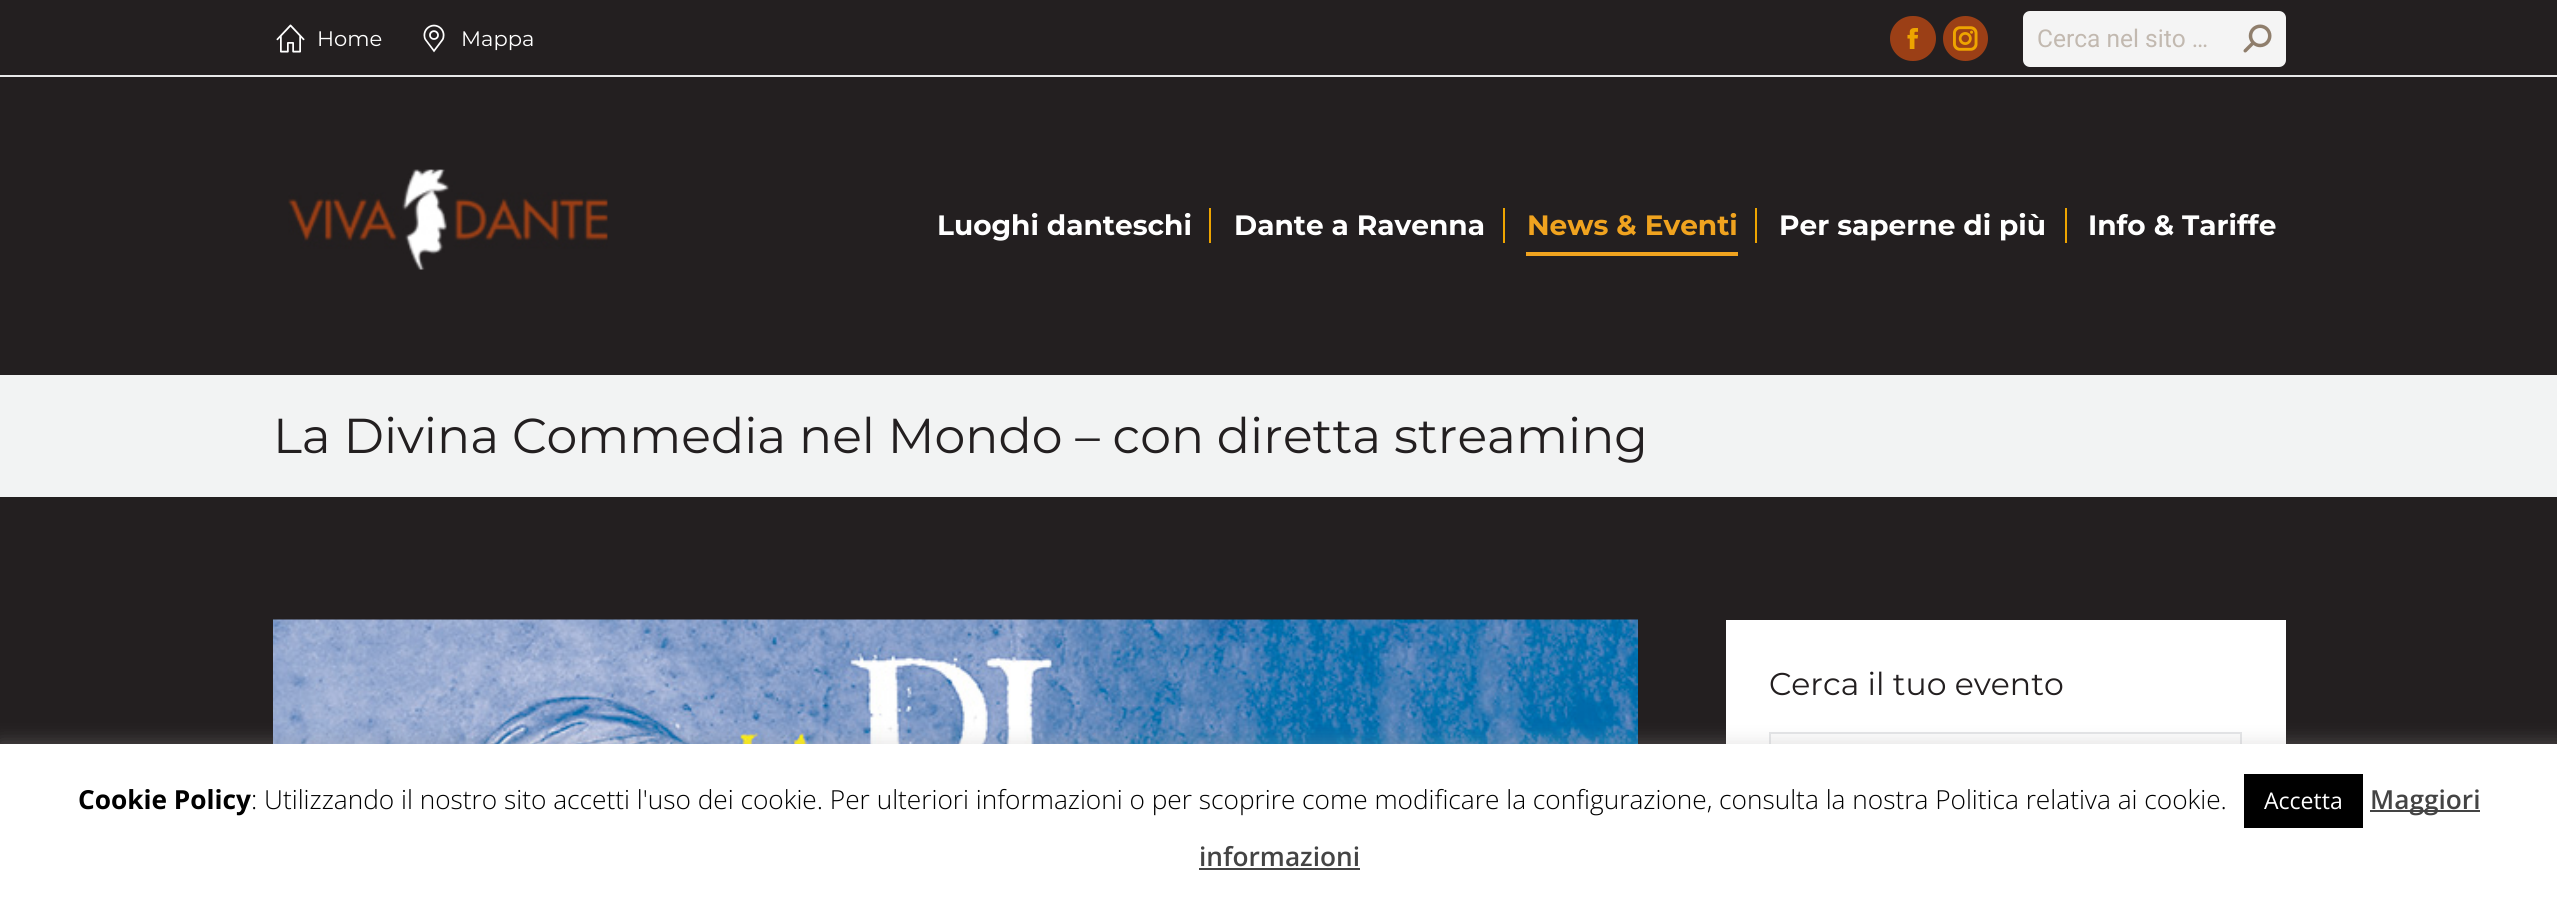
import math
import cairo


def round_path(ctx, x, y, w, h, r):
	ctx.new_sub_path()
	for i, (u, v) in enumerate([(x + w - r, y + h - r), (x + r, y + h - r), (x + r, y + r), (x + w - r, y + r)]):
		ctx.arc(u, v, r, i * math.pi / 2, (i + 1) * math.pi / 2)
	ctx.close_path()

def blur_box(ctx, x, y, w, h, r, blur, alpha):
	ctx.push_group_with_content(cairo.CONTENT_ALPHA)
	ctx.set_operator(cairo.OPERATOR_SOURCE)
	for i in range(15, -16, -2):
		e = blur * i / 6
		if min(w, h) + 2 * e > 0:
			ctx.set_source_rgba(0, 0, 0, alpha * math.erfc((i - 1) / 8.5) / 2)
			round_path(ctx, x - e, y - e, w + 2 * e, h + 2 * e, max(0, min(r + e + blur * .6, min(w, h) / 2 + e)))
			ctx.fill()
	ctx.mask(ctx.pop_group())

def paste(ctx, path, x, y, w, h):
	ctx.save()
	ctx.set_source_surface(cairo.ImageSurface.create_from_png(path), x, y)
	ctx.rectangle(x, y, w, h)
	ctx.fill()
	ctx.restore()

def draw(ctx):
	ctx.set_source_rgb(0.137, 0.122, 0.125)
	ctx.paint()
	paste(ctx, 'media/1.png', 276, 24, 29, 29)
	ctx.select_font_face('Montserrat')
	ctx.set_font_size(21)
	ctx.set_source_rgb(1, 1, 1)
	ctx.move_to(317, 46)
	ctx.show_text('Home')
	paste(ctx, 'media/2.png', 423, 24, 22, 29)
	ctx.move_to(461, 46)
	ctx.show_text('Mappa')
	ctx.set_source_rgb(0.608, 0.247, 0.086)
	round_path(ctx, 1890, 16, 46, 45, 22.5)
	ctx.fill()
	paste(ctx, 'media/3.png', 1907, 28, 11, 21)
	ctx.arc(1965.5, 38.5, 22.5, 0, 2 * math.pi)
	ctx.fill()
	paste(ctx, 'media/4.png', 1953, 26, 25, 25)
	ctx.set_source_rgb(0.957, 0.957, 0.957)
	round_path(ctx, 2023, 11, 263, 56, 7)
	ctx.fill()
	ctx.select_font_face('Roboto')
	ctx.set_font_size(24.5)
	ctx.set_source_rgb(0.761, 0.725, 0.69)
	ctx.move_to(2037, 47)
	ctx.show_text('Cerca nel sito …')
	paste(ctx, 'media/5.png', 2243, 24, 29, 29)
	ctx.set_source_rgb(0.91, 0.91, 0.91)
	ctx.rectangle(0, 75, 2557, 2)
	ctx.fill()
	paste(ctx, 'media/6.png', 288, 169, 320, 101)
	ctx.select_font_face('Montserrat', cairo.FONT_SLANT_NORMAL, cairo.FONT_WEIGHT_BOLD)
	ctx.set_font_size(28)
	ctx.set_source_rgb(1, 1, 1)
	ctx.move_to(937, 235)
	ctx.show_text('Luoghi danteschi')
	ctx.set_source_rgb(0.933, 0.643, 0)
	ctx.rectangle(1209, 208, 2, 35)
	ctx.fill()
	ctx.set_source_rgb(1, 1, 1)
	ctx.move_to(1234, 235)
	ctx.show_text('Dante a Ravenna')
	ctx.set_source_rgb(0.933, 0.643, 0)
	ctx.rectangle(1503, 208, 2, 35)
	ctx.fill()
	ctx.set_source_rgb(0.941, 0.639, 0.122)
	ctx.move_to(1527, 235)
	ctx.show_text('News & Eventi')
	ctx.rectangle(1526, 252, 212, 4)
	ctx.fill()
	ctx.set_source_rgb(0.933, 0.643, 0)
	ctx.rectangle(1755, 208, 2, 35)
	ctx.fill()
	ctx.set_source_rgb(1, 1, 1)
	ctx.move_to(1779, 235)
	ctx.show_text('Per saperne di più')
	ctx.set_source_rgb(0.933, 0.643, 0)
	ctx.rectangle(2065, 208, 2, 35)
	ctx.fill()
	ctx.set_source_rgb(1, 1, 1)
	ctx.move_to(2088, 235)
	ctx.show_text('Info & Tariffe')
	ctx.set_source_rgb(0.949, 0.953, 0.953)
	ctx.rectangle(0, 375, 2557, 122)
	ctx.fill()
	ctx.select_font_face('Montserrat')
	ctx.set_font_size(49)
	ctx.set_source_rgb(0.137, 0.122, 0.125)
	ctx.move_to(273, 453)
	ctx.show_text('La Divina Commedia nel Mondo – con diretta streaming')
	paste(ctx, 'media/7.png', 273, 619, 1365, 125)
	ctx.set_source_rgb(1, 1, 1)
	ctx.rectangle(1726, 620, 560, 124)
	ctx.fill()
	ctx.set_font_size(31.5)
	ctx.set_source_rgb(0.137, 0.122, 0.125)
	ctx.move_to(1769, 695)
	ctx.show_text('Cerca il tuo evento')
	ctx.set_source_rgb(0.988, 0.988, 0.988)
	ctx.rectangle(1771, 734, 469, 10)
	ctx.fill()
	ctx.rectangle(1770, 733, 471, 68)
	ctx.set_source_rgb(0.894, 0.898, 0.906)
	ctx.stroke()
	ctx.set_source_rgb(0.675, 0.671, 0.671)
	blur_box(ctx, 0, 742, 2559, 158, 0, 9, 0.3)
	ctx.set_source_rgb(1, 1, 1)
	ctx.rectangle(0, 744, 2557, 156)
	ctx.fill()
	ctx.select_font_face('Open Sans', cairo.FONT_SLANT_NORMAL, cairo.FONT_WEIGHT_BOLD)
	ctx.set_font_size(26.25)
	ctx.set_source_rgb(0, 0, 0)
	ctx.move_to(78, 809)
	ctx.show_text('Cookie Policy')
	ctx.select_font_face('Open Sans Light')
	ctx.move_to(251, 809)
	ctx.show_text(': Utilizzando il nostro sito accetti l\'uso dei cookie. Per ulteriori informazioni o per scoprire come modificare la configurazione, consulta la nostra Politica relativa ai cookie.')
	ctx.rectangle(2244, 774, 119, 54)
	ctx.fill()
	ctx.select_font_face('Open Sans')
	ctx.set_font_size(23)
	ctx.set_source_rgb(1, 1, 1)
	ctx.move_to(2264, 809)
	ctx.show_text('Accetta')
	ctx.set_source_rgb(0.267, 0.267, 0.267)
	ctx.rectangle(2370, 810, 110, 2)
	ctx.fill()
	ctx.select_font_face('Open Sans SemiBold')
	ctx.set_font_size(26.25)
	ctx.move_to(2370, 809)
	ctx.show_text('Maggiori')
	ctx.move_to(1199, 866)
	ctx.show_text('informazioni')
	ctx.rectangle(1199, 868, 161, 2)
	ctx.fill()


surface = cairo.ImageSurface(cairo.FORMAT_RGB24, 2557, 900)
ctx = cairo.Context(surface)
options = cairo.FontOptions()
options.set_hint_metrics(cairo.HINT_METRICS_OFF)
options.set_hint_style(cairo.HINT_STYLE_NONE)
ctx.set_font_options(options)
ctx.set_miter_limit(4)
draw(ctx)
surface.write_to_png('image.png')
